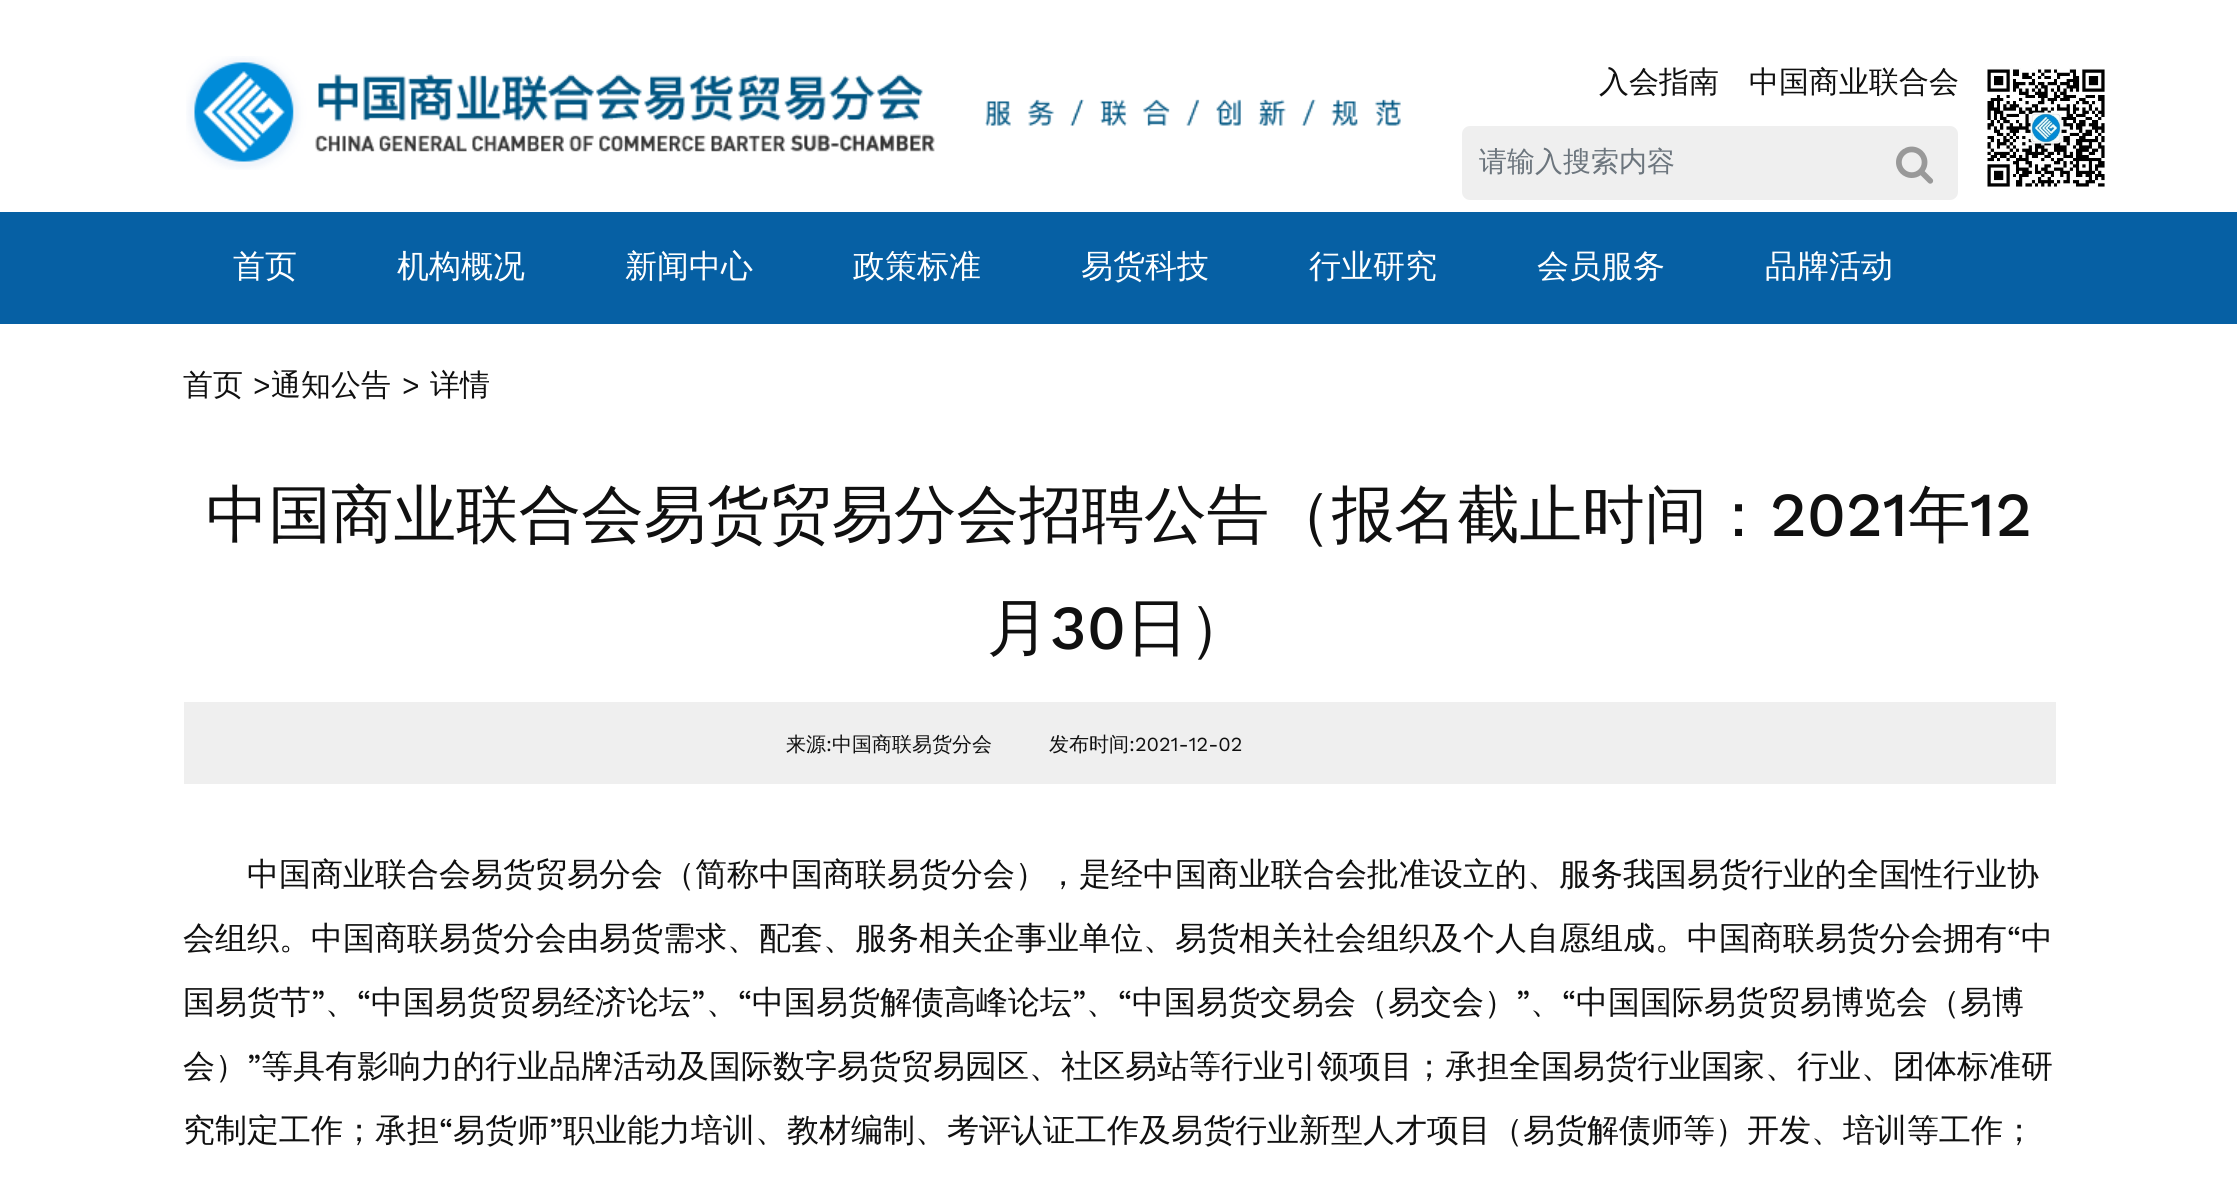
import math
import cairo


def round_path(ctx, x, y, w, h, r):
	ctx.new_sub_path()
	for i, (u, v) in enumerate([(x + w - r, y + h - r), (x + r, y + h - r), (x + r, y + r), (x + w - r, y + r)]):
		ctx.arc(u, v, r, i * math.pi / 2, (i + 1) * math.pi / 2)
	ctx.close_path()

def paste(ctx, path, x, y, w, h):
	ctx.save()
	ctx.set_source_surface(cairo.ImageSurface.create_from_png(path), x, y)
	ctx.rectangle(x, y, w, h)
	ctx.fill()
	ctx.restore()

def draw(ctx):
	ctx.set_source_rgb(1, 1, 1)
	ctx.paint()
	paste(ctx, 'media/1.png', 186, 56, 1215, 114)
	ctx.select_font_face('WenQuanYi Zen Hei Medium')
	ctx.set_font_size(30)
	ctx.set_source_rgb(0.063, 0.063, 0.063)
	ctx.move_to(1599, 92)
	ctx.show_text('入会指南')
	ctx.move_to(1749, 92)
	ctx.show_text('中国商业联合会')
	ctx.set_source_rgb(0.937, 0.937, 0.937)
	round_path(ctx, 1462, 126, 496, 74, 8)
	ctx.fill()
	ctx.set_font_size(28)
	ctx.set_source_rgb(0.424, 0.459, 0.49)
	ctx.move_to(1479, 171)
	ctx.show_text('请输入搜索内容')
	paste(ctx, 'media/2.png', 1896, 146, 38, 38)
	paste(ctx, 'media/3.png', 1987, 68, 118, 119)
	ctx.set_source_rgb(0.027, 0.376, 0.643)
	ctx.rectangle(0, 212, 2237, 112)
	ctx.fill()
	ctx.set_font_size(32)
	ctx.set_source_rgb(1, 1, 1)
	for x, y, s in [
		(233, 277, '首页'),
		(397, 277, '机构概况'),
		(625, 277, '新闻中心'),
		(853, 277, '政策标准'),
		(1081, 277, '易货科技'),
		(1309, 277, '行业研究'),
		(1537, 277, '会员服务'),
		(1765, 277, '品牌活动'),
	]:
		ctx.move_to(x, y)
		ctx.show_text(s)
	ctx.set_font_size(30)
	ctx.set_source_rgb(0.063, 0.063, 0.063)
	ctx.move_to(183, 395)
	ctx.show_text('首页')
	ctx.select_font_face('Work Sans')
	ctx.move_to(253, 395)
	ctx.show_text('>')
	ctx.select_font_face('WenQuanYi Zen Hei Medium')
	ctx.move_to(271, 395)
	ctx.show_text('通知公告')
	ctx.select_font_face('Work Sans')
	ctx.move_to(402, 395)
	ctx.show_text('>')
	ctx.select_font_face('WenQuanYi Zen Hei Medium')
	ctx.move_to(430, 395)
	ctx.show_text('详情')
	ctx.set_font_size(62.55)
	ctx.move_to(206, 536)
	ctx.show_text('中国商业联合会易货贸易分会招聘公告（报名截止时间：')
	ctx.select_font_face('Work Sans Medium')
	ctx.move_to(1770, 536)
	ctx.show_text('2021')
	ctx.select_font_face('WenQuanYi Zen Hei Medium')
	ctx.move_to(1908, 536)
	ctx.show_text('年')
	ctx.select_font_face('Work Sans Medium')
	ctx.move_to(1970, 536)
	ctx.show_text('12')
	ctx.select_font_face('WenQuanYi Zen Hei Medium')
	ctx.move_to(987, 649)
	ctx.show_text('月')
	ctx.select_font_face('Work Sans Medium')
	ctx.move_to(1050, 649)
	ctx.show_text('30')
	ctx.select_font_face('WenQuanYi Zen Hei Medium')
	ctx.move_to(1126, 649)
	ctx.show_text('日）')
	ctx.set_source_rgb(0.937, 0.937, 0.937)
	ctx.rectangle(184, 702, 1872, 82)
	ctx.fill()
	ctx.set_font_size(20)
	ctx.set_source_rgb(0.063, 0.063, 0.063)
	ctx.move_to(786, 751)
	ctx.show_text('来源 中国商联易货分会')
	ctx.move_to(1049, 751)
	ctx.show_text('发布时间')
	ctx.select_font_face('Work Sans')
	ctx.move_to(1129, 751)
	ctx.show_text(':2021-12-02')
	ctx.move_to(826, 751)
	ctx.show_text(':')
	ctx.select_font_face('WenQuanYi Zen Hei Medium')
	ctx.set_font_size(32)
	ctx.move_to(247, 885)
	ctx.show_text('中国商业联合会易货贸易分会（简称中国商联易货分会），是经中国商业联合会批准设立的、服务我国易货行业的全国性行业协')
	ctx.move_to(183, 949)
	ctx.show_text('会组织。中国商联易货分会由易货需求、配套、服务相关企事业单位、易货相关社会组织及个人自愿组成。中国商联易货分会拥有')
	ctx.select_font_face('Work Sans')
	ctx.move_to(2007, 949)
	ctx.show_text('“')
	ctx.select_font_face('WenQuanYi Zen Hei Medium')
	ctx.move_to(2021, 949)
	ctx.show_text('中')
	ctx.move_to(183, 1013)
	ctx.show_text('国易货节')
	ctx.select_font_face('Work Sans')
	ctx.move_to(311, 1013)
	ctx.show_text('”')
	ctx.move_to(357, 1013)
	ctx.show_text('“')
	ctx.select_font_face('WenQuanYi Zen Hei Medium')
	ctx.move_to(371, 1013)
	ctx.show_text('中国易货贸易经济论坛')
	ctx.select_font_face('Work Sans')
	ctx.move_to(691, 1013)
	ctx.show_text('”')
	ctx.move_to(738, 1013)
	ctx.show_text('“')
	ctx.select_font_face('WenQuanYi Zen Hei Medium')
	ctx.move_to(752, 1013)
	ctx.show_text('中国易货解债高峰论坛')
	ctx.select_font_face('Work Sans')
	ctx.move_to(1072, 1013)
	ctx.show_text('”')
	ctx.move_to(1118, 1013)
	ctx.show_text('“')
	ctx.select_font_face('WenQuanYi Zen Hei Medium')
	ctx.move_to(1132, 1013)
	ctx.show_text('中国易货交易会（易交会）')
	ctx.select_font_face('Work Sans')
	ctx.move_to(1516, 1013)
	ctx.show_text('”')
	ctx.move_to(1562, 1013)
	ctx.show_text('“')
	ctx.select_font_face('WenQuanYi Zen Hei Medium')
	for x, y, s in [
		(1576, 1013, '中国国际易货贸易博览会（易博'),
		(325, 1013, '、'),
		(706, 1013, '、'),
		(1086, 1013, '、'),
		(1530, 1013, '、'),
		(183, 1077, '会）'),
	]:
		ctx.move_to(x, y)
		ctx.show_text(s)
	ctx.select_font_face('Work Sans')
	ctx.move_to(247, 1077)
	ctx.show_text('”')
	ctx.select_font_face('WenQuanYi Zen Hei Medium')
	ctx.move_to(261, 1077)
	ctx.show_text('等具有影响力的行业品牌活动及国际数字易货贸易园区、社区易站等行业引领项目；承担全国易货行业国家、行业、团体标准研')
	ctx.move_to(183, 1141)
	ctx.show_text('究制定工作；承担')
	ctx.select_font_face('Work Sans')
	ctx.move_to(439, 1141)
	ctx.show_text('“')
	ctx.select_font_face('WenQuanYi Zen Hei Medium')
	ctx.move_to(453, 1141)
	ctx.show_text('易货师')
	ctx.select_font_face('Work Sans')
	ctx.move_to(549, 1141)
	ctx.show_text('”')
	ctx.select_font_face('WenQuanYi Zen Hei Medium')
	ctx.move_to(563, 1141)
	ctx.show_text('职业能力培训、教材编制、考评认证工作及易货行业新型人才项目（易货解债师等）开发、培训等工作；')


surface = cairo.ImageSurface(cairo.FORMAT_RGB24, 2237, 1183)
ctx = cairo.Context(surface)
options = cairo.FontOptions()
options.set_hint_metrics(cairo.HINT_METRICS_OFF)
options.set_hint_style(cairo.HINT_STYLE_NONE)
ctx.set_font_options(options)
ctx.set_miter_limit(4)
draw(ctx)
surface.write_to_png('image.png')
